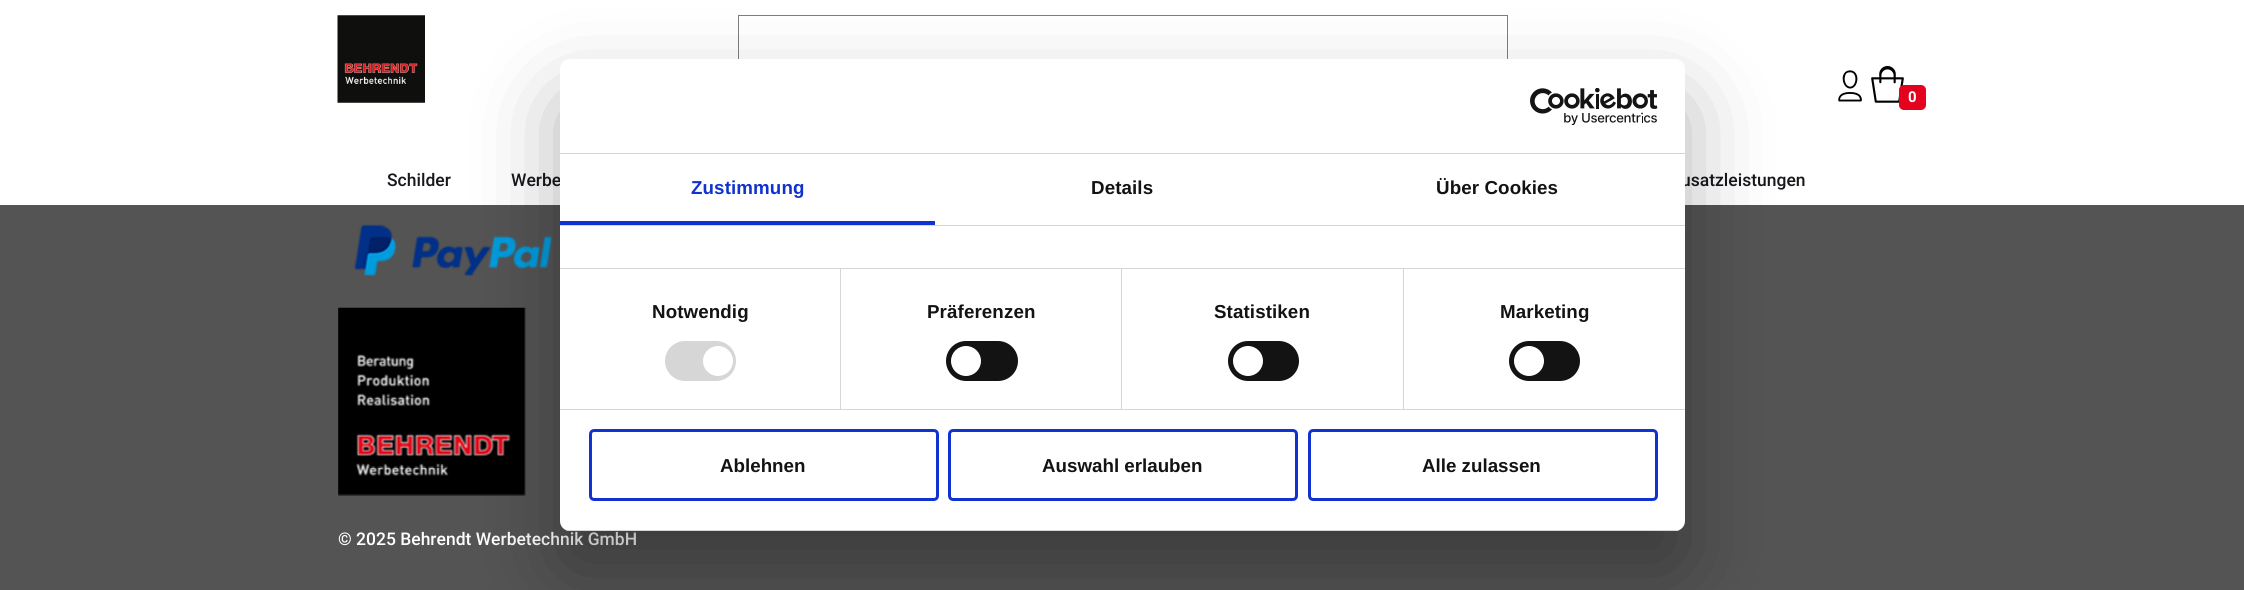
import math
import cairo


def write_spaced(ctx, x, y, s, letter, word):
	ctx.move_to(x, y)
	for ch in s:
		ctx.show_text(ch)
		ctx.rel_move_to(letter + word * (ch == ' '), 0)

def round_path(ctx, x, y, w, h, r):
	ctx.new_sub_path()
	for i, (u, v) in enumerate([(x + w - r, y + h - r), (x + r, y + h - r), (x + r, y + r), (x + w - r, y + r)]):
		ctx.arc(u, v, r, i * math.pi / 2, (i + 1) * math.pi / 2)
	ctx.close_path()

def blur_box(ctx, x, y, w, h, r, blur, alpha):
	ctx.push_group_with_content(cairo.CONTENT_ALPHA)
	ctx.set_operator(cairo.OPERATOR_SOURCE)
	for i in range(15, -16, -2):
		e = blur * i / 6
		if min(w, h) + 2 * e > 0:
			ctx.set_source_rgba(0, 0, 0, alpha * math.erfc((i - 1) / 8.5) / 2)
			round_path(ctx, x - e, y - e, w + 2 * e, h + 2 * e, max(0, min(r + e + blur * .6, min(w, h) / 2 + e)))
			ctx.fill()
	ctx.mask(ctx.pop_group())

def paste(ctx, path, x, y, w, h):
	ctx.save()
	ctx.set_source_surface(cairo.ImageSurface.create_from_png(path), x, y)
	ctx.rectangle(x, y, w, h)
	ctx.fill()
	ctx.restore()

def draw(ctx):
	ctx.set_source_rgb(0.329, 0.329, 0.329)
	ctx.paint()
	ctx.set_source_rgb(1, 1, 1)
	ctx.rectangle(0, 0, 2244, 205)
	ctx.fill()
	paste(ctx, 'media/1.png', 337, 15, 88, 88)
	ctx.rectangle(738.5, 15.5, 769, 47)
	ctx.set_source_rgb(0.494, 0.494, 0.494)
	ctx.set_line_width(1)
	ctx.stroke()
	paste(ctx, 'media/2.png', 1838, 70, 24, 32)
	paste(ctx, 'media/3.png', 1871, 66, 33, 37)
	ctx.set_source_rgb(0.898, 0.008, 0.118)
	round_path(ctx, 1899, 85, 27, 25, 5)
	ctx.fill()
	ctx.select_font_face('Roboto', cairo.FONT_SLANT_NORMAL, cairo.FONT_WEIGHT_BOLD)
	ctx.set_font_size(15)
	ctx.set_source_rgb(1, 1, 1)
	ctx.move_to(1908, 102)
	ctx.show_text('0')
	ctx.select_font_face('Roboto Medium')
	ctx.set_font_size(17.5)
	ctx.set_source_rgb(0.09, 0.09, 0.11)
	for x, y, s in [
		(387, 186, 'Schilder'),
		(511, 186, 'Werbe'),
		(1681, 186, 'usatzleistungen'),
	]:
		ctx.move_to(x, y)
		ctx.show_text(s)
	paste(ctx, 'media/4.png', 354, 224, 198, 52)
	paste(ctx, 'media/5.png', 338, 307, 188, 189)
	ctx.set_source_rgb(1, 1, 1)
	ctx.move_to(338, 545)
	ctx.show_text('© 2025 Behrendt Werbetechnik GmbH')
	ctx.set_source_rgb(0, 0, 0)
	blur_box(ctx, 560, 99, 1125, 472, 10, 42.5, 0.3)
	ctx.set_source_rgb(1, 1, 1)
	round_path(ctx, 560, 59, 1125, 472, 10)
	ctx.fill()
	ctx.set_source_rgb(0.839, 0.839, 0.839)
	ctx.rectangle(560, 153, 1125, 1)
	ctx.fill()
	paste(ctx, 'media/6.png', 1530, 88, 128, 37)
	ctx.rectangle(560, 225, 1125, 1)
	ctx.fill()
	ctx.set_source_rgb(0.063, 0.196, 0.812)
	ctx.rectangle(560, 221, 375, 4)
	ctx.fill()
	ctx.select_font_face('Liberation Sans', cairo.FONT_SLANT_NORMAL, cairo.FONT_WEIGHT_BOLD)
	ctx.set_font_size(18.75)
	write_spaced(ctx, 691, 194, 'Zustimmung', 0.1, 0)
	ctx.set_source_rgb(0.078, 0.078, 0.078)
	write_spaced(ctx, 1091, 194, 'Details', 0.1, 0)
	write_spaced(ctx, 1436, 194, 'Über Cookies', 0.1, 0)
	ctx.set_source_rgb(0.839, 0.839, 0.839)
	ctx.rectangle(560, 268, 1125, 1)
	ctx.rectangle(560, 409, 1125, 1)
	ctx.rectangle(840, 269, 1, 140)
	ctx.fill()
	ctx.set_source_rgb(0.078, 0.078, 0.078)
	write_spaced(ctx, 652, 318, 'Notwendig', 0.1, 0)
	ctx.set_source_rgb(0.839, 0.839, 0.839)
	round_path(ctx, 665, 341, 71, 40, 20)
	ctx.fill()
	ctx.set_source_rgb(1, 1, 1)
	ctx.arc(718, 361, 15, 0, 2 * math.pi)
	ctx.fill()
	ctx.set_source_rgb(0.839, 0.839, 0.839)
	ctx.rectangle(1121, 269, 1, 140)
	ctx.fill()
	ctx.set_source_rgb(0.078, 0.078, 0.078)
	write_spaced(ctx, 927, 318, 'Präferenzen', 0.1, 0)
	round_path(ctx, 946, 341, 72, 40, 20)
	ctx.fill()
	ctx.set_source_rgb(1, 1, 1)
	ctx.arc(966, 361, 15, 0, 2 * math.pi)
	ctx.fill()
	ctx.set_source_rgb(0.839, 0.839, 0.839)
	ctx.rectangle(1403, 269, 1, 140)
	ctx.fill()
	ctx.set_source_rgb(0.078, 0.078, 0.078)
	write_spaced(ctx, 1214, 318, 'Statistiken', 0.1, 0)
	round_path(ctx, 1228, 341, 71, 40, 20)
	ctx.fill()
	ctx.set_source_rgb(1, 1, 1)
	ctx.arc(1248, 361, 15, 0, 2 * math.pi)
	ctx.fill()
	ctx.set_source_rgb(0.078, 0.078, 0.078)
	write_spaced(ctx, 1500, 318, 'Marketing', 0.1, 0)
	round_path(ctx, 1509, 341, 71, 40, 20)
	ctx.fill()
	ctx.set_source_rgb(1, 1, 1)
	ctx.arc(1529, 361, 15, 0, 2 * math.pi)
	ctx.fill()
	ctx.save()
	round_path(ctx, 560, 59, 1125, 472, 10)
	ctx.clip()
	ctx.set_source_rgb(0.839, 0.839, 0.839)
	ctx.rectangle(560, 530, 1125, 1)
	ctx.fill()
	ctx.restore()
	round_path(ctx, 590.5, 430.5, 347, 69, 3.5)
	ctx.set_source_rgb(0.063, 0.196, 0.812)
	ctx.set_line_width(3)
	ctx.stroke()
	ctx.set_source_rgb(0.078, 0.078, 0.078)
	ctx.move_to(720, 472)
	ctx.show_text('Ablehnen')
	round_path(ctx, 949.5, 430.5, 347, 69, 3.5)
	ctx.set_source_rgb(0.063, 0.196, 0.812)
	ctx.stroke()
	ctx.set_source_rgb(0.078, 0.078, 0.078)
	ctx.move_to(1042, 472)
	ctx.show_text('Auswahl erlauben')
	round_path(ctx, 1309.5, 430.5, 347, 69, 3.5)
	ctx.set_source_rgb(0.063, 0.196, 0.812)
	ctx.stroke()
	ctx.set_source_rgb(0.078, 0.078, 0.078)
	ctx.move_to(1422, 472)
	ctx.show_text('Alle zulassen')


surface = cairo.ImageSurface(cairo.FORMAT_RGB24, 2244, 590)
ctx = cairo.Context(surface)
options = cairo.FontOptions()
options.set_hint_metrics(cairo.HINT_METRICS_OFF)
options.set_hint_style(cairo.HINT_STYLE_NONE)
ctx.set_font_options(options)
ctx.set_miter_limit(4)
draw(ctx)
surface.write_to_png('image.png')
